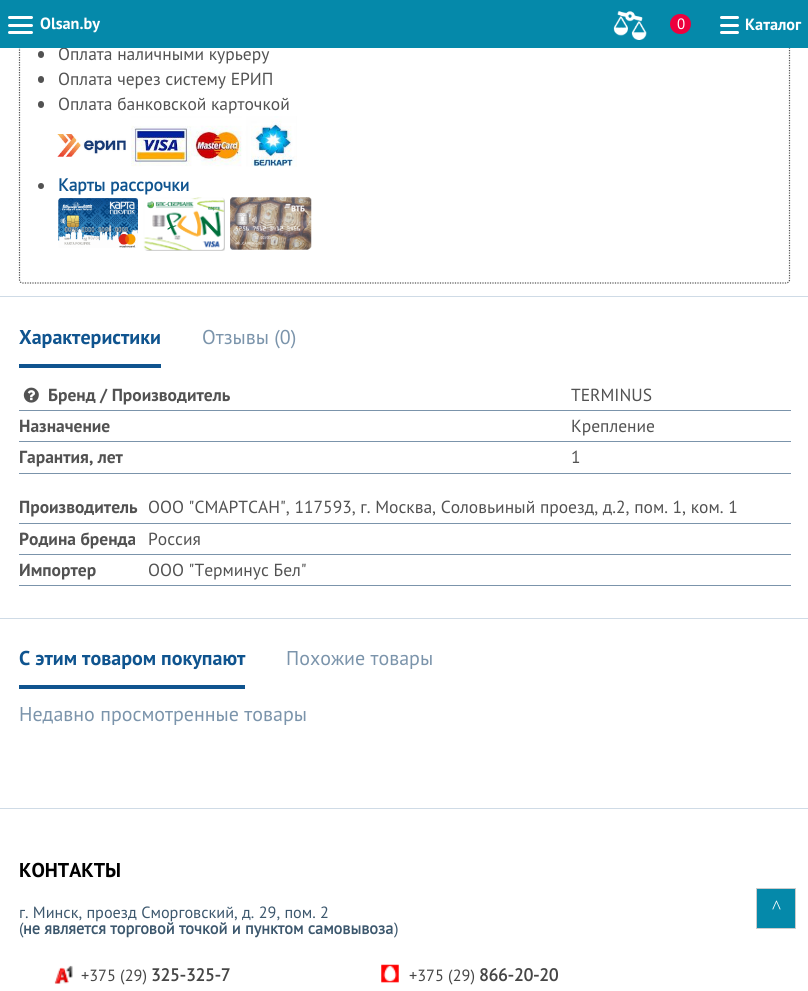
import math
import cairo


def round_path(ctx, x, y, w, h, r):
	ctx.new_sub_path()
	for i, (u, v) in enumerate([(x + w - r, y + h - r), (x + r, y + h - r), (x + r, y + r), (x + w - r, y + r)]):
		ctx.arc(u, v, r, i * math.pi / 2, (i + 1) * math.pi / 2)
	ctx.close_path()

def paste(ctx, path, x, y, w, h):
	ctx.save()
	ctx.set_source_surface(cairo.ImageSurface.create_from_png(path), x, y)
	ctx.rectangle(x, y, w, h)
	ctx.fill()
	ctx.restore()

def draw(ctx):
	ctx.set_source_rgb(1, 1, 1)
	ctx.paint()
	ctx.new_path()
	ctx.move_to(22.5, -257)
	ctx.line_to(786, -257)
	ctx.curve_to(788, -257, 789.5, -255.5, 789.5, -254)
	ctx.line_to(789.5, 280)
	ctx.curve_to(789.5, 281.5, 788, 283, 786, 283)
	ctx.line_to(22.5, 283)
	ctx.curve_to(21, 283, 19.5, 281.5, 19.5, 280)
	ctx.line_to(19.5, -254)
	ctx.curve_to(19.5, -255.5, 21, -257, 22.5, -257)
	ctx.close_path()
	ctx.set_source_rgb(0.322, 0.322, 0.322)
	ctx.set_line_width(1.2)
	ctx.set_dash([1.25, 1.25])
	ctx.stroke()
	ctx.select_font_face('PT Sans')
	ctx.set_font_size(17.5)
	ctx.move_to(58, 60)
	ctx.show_text('Оплата наличными курьеру')
	ctx.set_source_rgb(0.02, 0.537, 0.667)
	ctx.rectangle(0, 0, 808, 48)
	ctx.fill()
	ctx.set_source_rgb(1, 1, 1)
	round_path(ctx, 8, 16, 25, 3, 1.5)
	ctx.fill()
	round_path(ctx, 8, 24, 25, 3, 1.5)
	ctx.fill()
	round_path(ctx, 8, 31, 25, 3, 1.5)
	ctx.fill()
	ctx.select_font_face('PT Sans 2', cairo.FONT_SLANT_NORMAL, cairo.FONT_WEIGHT_BOLD)
	ctx.set_font_size(16.25)
	ctx.move_to(40, 29)
	ctx.show_text('Olsan.by')
	paste(ctx, 'media/1.png', 613, 11, 34, 29)
	ctx.set_source_rgb(0.929, 0, 0.239)
	round_path(ctx, 670, 14, 21, 20, 10)
	ctx.fill()
	ctx.select_font_face('PT Sans')
	ctx.set_font_size(15)
	ctx.set_source_rgb(1, 1, 1)
	ctx.move_to(677, 29)
	ctx.show_text('0')
	round_path(ctx, 720, 16, 19, 3, 1.5)
	ctx.fill()
	round_path(ctx, 720, 24, 19, 3, 1.5)
	ctx.fill()
	round_path(ctx, 720, 31, 19, 3, 1.5)
	ctx.fill()
	ctx.select_font_face('PT Sans 2', cairo.FONT_SLANT_NORMAL, cairo.FONT_WEIGHT_BOLD)
	ctx.set_font_size(16.25)
	ctx.move_to(745, 30)
	ctx.show_text('Каталог')
	ctx.set_source_rgb(0.322, 0.322, 0.322)
	round_path(ctx, 38, 51, 6, 7, 3)
	ctx.fill()
	round_path(ctx, 38, 76, 6, 7, 3)
	ctx.fill()
	ctx.select_font_face('PT Sans')
	ctx.set_font_size(17.5)
	ctx.move_to(58, 85)
	ctx.show_text('Оплата через систему ЕРИП')
	round_path(ctx, 38, 101, 6, 7, 3)
	ctx.fill()
	ctx.move_to(58, 110)
	ctx.show_text('Оплата банковской карточкой')
	paste(ctx, 'media/2.png', 57, 134, 69, 23)
	paste(ctx, 'media/3.png', 131, 116, 166, 51)
	ctx.arc(41, 186, 3, 0, 2 * math.pi)
	ctx.fill()
	ctx.select_font_face('PT Sans', cairo.FONT_SLANT_NORMAL, cairo.FONT_WEIGHT_BOLD)
	ctx.set_source_rgb(0.059, 0.329, 0.561)
	ctx.move_to(58, 191)
	ctx.show_text('Карты рассрочки')
	paste(ctx, 'media/4.png', 58, 198, 80, 50)
	paste(ctx, 'media/5.png', 143, 197, 82, 54)
	paste(ctx, 'media/6.png', 230, 197, 82, 53)
	ctx.set_source_rgb(0.812, 0.859, 0.902)
	ctx.rectangle(0, 296, 808, 1)
	ctx.fill()
	ctx.set_source_rgb(0.059, 0.329, 0.561)
	ctx.rectangle(19, 364, 142, 4)
	ctx.fill()
	ctx.select_font_face('PT Sans 2', cairo.FONT_SLANT_NORMAL, cairo.FONT_WEIGHT_BOLD)
	ctx.set_font_size(20)
	ctx.move_to(19, 344)
	ctx.show_text('Характеристики')
	ctx.select_font_face('PT Sans')
	ctx.set_source_rgb(0.482, 0.58, 0.671)
	ctx.move_to(202, 344)
	ctx.show_text('Отзывы (0)')
	paste(ctx, 'media/7.png', 23, 387, 16, 16)
	ctx.select_font_face('PT Sans 2', cairo.FONT_SLANT_NORMAL, cairo.FONT_WEIGHT_BOLD)
	ctx.set_font_size(17.5)
	ctx.set_source_rgb(0.322, 0.322, 0.322)
	ctx.move_to(48, 401)
	ctx.show_text('Бренд / Производитель')
	ctx.set_source_rgb(0.482, 0.58, 0.671)
	ctx.rectangle(19, 410, 772, 1)
	ctx.fill()
	ctx.select_font_face('PT Sans')
	ctx.set_source_rgb(0.322, 0.322, 0.322)
	ctx.move_to(571, 401)
	ctx.show_text('TERMINUS')
	ctx.select_font_face('PT Sans 2', cairo.FONT_SLANT_NORMAL, cairo.FONT_WEIGHT_BOLD)
	ctx.move_to(19, 432)
	ctx.show_text('Назначение')
	ctx.set_source_rgb(0.482, 0.58, 0.671)
	ctx.rectangle(19, 441, 772, 1)
	ctx.fill()
	ctx.select_font_face('PT Sans')
	ctx.set_source_rgb(0.322, 0.322, 0.322)
	ctx.move_to(571, 432)
	ctx.show_text('Крепление')
	ctx.select_font_face('PT Sans 2', cairo.FONT_SLANT_NORMAL, cairo.FONT_WEIGHT_BOLD)
	ctx.move_to(19, 463)
	ctx.show_text('Гарантия, лет')
	ctx.set_source_rgb(0.482, 0.58, 0.671)
	ctx.rectangle(19, 473, 772, 1)
	ctx.fill()
	ctx.select_font_face('PT Sans')
	ctx.set_source_rgb(0.322, 0.322, 0.322)
	ctx.move_to(571, 463)
	ctx.show_text('1')
	ctx.select_font_face('PT Sans 2', cairo.FONT_SLANT_NORMAL, cairo.FONT_WEIGHT_BOLD)
	ctx.move_to(19, 513)
	ctx.show_text('Производитель')
	ctx.set_source_rgb(0.482, 0.58, 0.671)
	ctx.rectangle(19, 523, 772, 1)
	ctx.fill()
	ctx.select_font_face('PT Sans')
	ctx.set_source_rgb(0.322, 0.322, 0.322)
	ctx.move_to(148, 513)
	ctx.show_text('ООО "СМАРТСАН", 117593, г. Москва, Соловьиный проезд, д.2, пом. 1, ком. 1')
	ctx.select_font_face('PT Sans 2', cairo.FONT_SLANT_NORMAL, cairo.FONT_WEIGHT_BOLD)
	ctx.move_to(19, 545)
	ctx.show_text('Родина бренда')
	ctx.set_source_rgb(0.482, 0.58, 0.671)
	ctx.rectangle(19, 554, 772, 1)
	ctx.fill()
	ctx.select_font_face('PT Sans')
	ctx.set_source_rgb(0.322, 0.322, 0.322)
	ctx.move_to(148, 545)
	ctx.show_text('Россия')
	ctx.select_font_face('PT Sans 2', cairo.FONT_SLANT_NORMAL, cairo.FONT_WEIGHT_BOLD)
	ctx.move_to(19, 576)
	ctx.show_text('Импортер')
	ctx.set_source_rgb(0.482, 0.58, 0.671)
	ctx.rectangle(19, 585, 772, 1)
	ctx.fill()
	ctx.select_font_face('PT Sans')
	ctx.set_source_rgb(0.322, 0.322, 0.322)
	ctx.move_to(148, 576)
	ctx.show_text('ООО "Терминус Бел"')
	ctx.set_source_rgb(0.812, 0.859, 0.902)
	ctx.rectangle(0, 618, 808, 1)
	ctx.fill()
	ctx.set_source_rgb(0.059, 0.329, 0.561)
	ctx.rectangle(19, 685, 226, 4)
	ctx.fill()
	ctx.select_font_face('PT Sans 2', cairo.FONT_SLANT_NORMAL, cairo.FONT_WEIGHT_BOLD)
	ctx.set_font_size(20)
	ctx.move_to(19, 665)
	ctx.show_text('С этим товаром покупают')
	ctx.select_font_face('PT Sans')
	ctx.set_source_rgb(0.482, 0.58, 0.671)
	ctx.move_to(286, 665)
	ctx.show_text('Похожие товары')
	ctx.move_to(19, 721)
	ctx.show_text('Недавно просмотренные товары')
	ctx.set_source_rgb(0.812, 0.859, 0.902)
	ctx.rectangle(0, 808, 808, 1)
	ctx.fill()
	ctx.select_font_face('PT Sans 2', cairo.FONT_SLANT_NORMAL, cairo.FONT_WEIGHT_BOLD)
	ctx.set_source_rgb(0, 0, 0)
	ctx.move_to(19, 877)
	ctx.show_text('КОНТАКТЫ')
	ctx.select_font_face('PT Sans')
	ctx.set_font_size(16.25)
	ctx.set_source_rgb(0.235, 0.341, 0.427)
	ctx.move_to(19, 918)
	ctx.show_text('г. Минск, проезд Сморговский, д. 29, пом. 2')
	ctx.move_to(19, 934)
	ctx.show_text('(')
	ctx.select_font_face('PT Sans', cairo.FONT_SLANT_NORMAL, cairo.FONT_WEIGHT_BOLD)
	ctx.move_to(23, 934)
	ctx.show_text('не является торговой точкой и пунктом самовывоза')
	ctx.select_font_face('PT Sans')
	ctx.move_to(394, 934)
	ctx.show_text(')')
	paste(ctx, 'media/8.png', 54, 965, 19, 19)
	ctx.set_source_rgb(0.275, 0.275, 0.275)
	ctx.move_to(81, 981)
	ctx.show_text('+375 (29)')
	ctx.select_font_face('PT Sans', cairo.FONT_SLANT_NORMAL, cairo.FONT_WEIGHT_BOLD)
	ctx.set_font_size(17.5)
	ctx.move_to(151, 981)
	ctx.show_text('325-325-7')
	paste(ctx, 'media/9.png', 381, 964, 18, 19)
	ctx.select_font_face('PT Sans')
	ctx.set_font_size(16.25)
	ctx.move_to(409, 981)
	ctx.show_text('+375 (29)')
	ctx.select_font_face('PT Sans', cairo.FONT_SLANT_NORMAL, cairo.FONT_WEIGHT_BOLD)
	ctx.set_font_size(17.5)
	ctx.move_to(479, 981)
	ctx.show_text('866-20-20')
	ctx.set_source_rgb(0.02, 0.537, 0.667)
	ctx.rectangle(756.5, 888.5, 39, 40)
	ctx.fill_preserve()
	ctx.set_source_rgb(0.8, 0.8, 0.8)
	ctx.set_line_width(1)
	ctx.set_dash([])
	ctx.stroke()
	ctx.select_font_face('Liberation Serif')
	ctx.set_font_size(19)
	ctx.set_source_rgb(1, 1, 1)
	ctx.move_to(772, 913)
	ctx.show_text('^')


surface = cairo.ImageSurface(cairo.FORMAT_RGB24, 808, 991)
ctx = cairo.Context(surface)
options = cairo.FontOptions()
options.set_hint_metrics(cairo.HINT_METRICS_OFF)
options.set_hint_style(cairo.HINT_STYLE_NONE)
ctx.set_font_options(options)
ctx.set_miter_limit(4)
draw(ctx)
surface.write_to_png('image.png')
